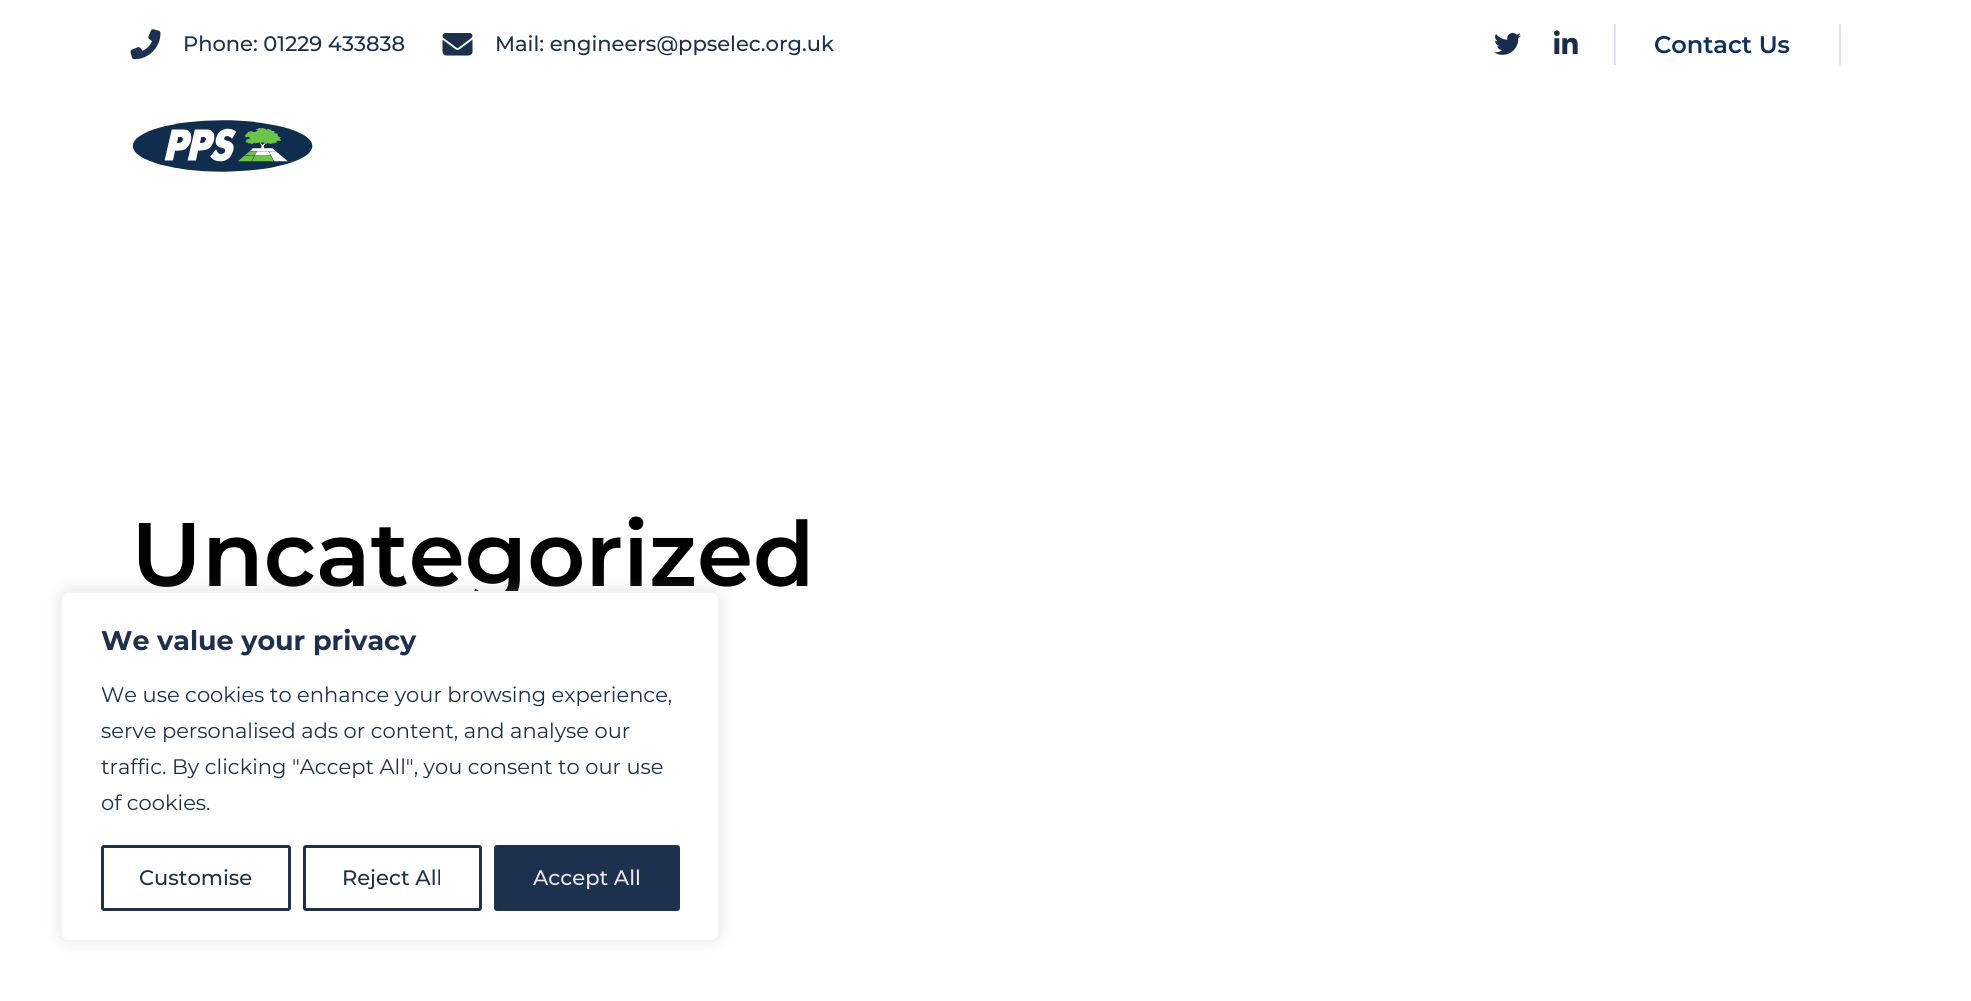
import math
import cairo


def round_path(ctx, x, y, w, h, r):
	ctx.new_sub_path()
	for i, (u, v) in enumerate([(x + w - r, y + h - r), (x + r, y + h - r), (x + r, y + r), (x + w - r, y + r)]):
		ctx.arc(u, v, r, i * math.pi / 2, (i + 1) * math.pi / 2)
	ctx.close_path()

def blur_box(ctx, x, y, w, h, r, blur, alpha):
	ctx.push_group_with_content(cairo.CONTENT_ALPHA)
	ctx.set_operator(cairo.OPERATOR_SOURCE)
	for i in range(15, -16, -2):
		e = blur * i / 6
		if min(w, h) + 2 * e > 0:
			ctx.set_source_rgba(0, 0, 0, alpha * math.erfc((i - 1) / 8.5) / 2)
			round_path(ctx, x - e, y - e, w + 2 * e, h + 2 * e, max(0, min(r + e + blur * .6, min(w, h) / 2 + e)))
			ctx.fill()
	ctx.mask(ctx.pop_group())

def paste(ctx, path, x, y, w, h):
	ctx.save()
	ctx.set_source_surface(cairo.ImageSurface.create_from_png(path), x, y)
	ctx.rectangle(x, y, w, h)
	ctx.fill()
	ctx.restore()

def draw(ctx):
	ctx.set_source_rgb(1, 1, 1)
	ctx.paint()
	paste(ctx, 'media/1.png', 130, 29, 31, 31)
	ctx.select_font_face('Montserrat Medium')
	ctx.set_font_size(21)
	ctx.set_source_rgb(0.114, 0.188, 0.302)
	ctx.move_to(183, 51)
	ctx.show_text('Phone: 01229 433838')
	paste(ctx, 'media/2.png', 442, 33, 31, 23)
	ctx.move_to(495, 51)
	ctx.show_text('Mail: engineers@ppselec.org.uk')
	paste(ctx, 'media/3.png', 1494, 32, 27, 23)
	paste(ctx, 'media/4.png', 1554, 30, 24, 24)
	ctx.set_source_rgb(0.886, 0.902, 0.925)
	ctx.rectangle(1614, 24, 2, 41)
	ctx.fill()
	ctx.select_font_face('Montserrat SemiBold')
	ctx.set_font_size(24)
	ctx.set_source_rgb(0.055, 0.188, 0.365)
	ctx.move_to(1654, 53)
	ctx.show_text('Contact Us')
	ctx.set_source_rgb(0.886, 0.902, 0.925)
	ctx.rectangle(1839, 24, 2, 41)
	ctx.fill()
	paste(ctx, 'media/5.png', 132, 120, 181, 52)
	ctx.set_font_size(90)
	ctx.set_source_rgb(0, 0, 0)
	ctx.move_to(131, 586)
	ctx.show_text('Uncategorized')
	ctx.set_source_rgb(0.675, 0.671, 0.671)
	blur_box(ctx, 60, 590, 660, 351, 9, 7.5, 0.3)
	ctx.set_source_rgb(1, 1, 1)
	round_path(ctx, 61, 592, 658, 349, 8)
	ctx.fill_preserve()
	ctx.set_source_rgb(0.957, 0.957, 0.957)
	ctx.stroke()
	ctx.select_font_face('Montserrat', cairo.FONT_SLANT_NORMAL, cairo.FONT_WEIGHT_BOLD)
	ctx.set_font_size(27)
	ctx.set_source_rgb(0.114, 0.188, 0.302)
	ctx.move_to(101, 650)
	ctx.show_text('We value your privacy')
	ctx.select_font_face('Montserrat')
	ctx.set_font_size(21)
	for x, y, s in [
		(101, 702, 'We use cookies to enhance your browsing experience,'),
		(101, 738, 'serve personalised ads or content, and analyse our'),
		(101, 774, 'traffic. By clicking "Accept All", you consent to our use'),
		(101, 810, 'of cookies.'),
	]:
		ctx.move_to(x, y)
		ctx.show_text(s)
	round_path(ctx, 102.5, 846.5, 187, 63, 1.5)
	ctx.set_line_width(3)
	ctx.stroke()
	ctx.select_font_face('Montserrat Medium')
	ctx.move_to(139, 885)
	ctx.show_text('Customise')
	round_path(ctx, 304.5, 846.5, 176, 63, 1.5)
	ctx.stroke()
	ctx.move_to(342, 885)
	ctx.show_text('Reject All')
	round_path(ctx, 495.5, 846.5, 183, 63, 1.5)
	ctx.fill_preserve()
	ctx.stroke()
	ctx.set_source_rgb(0.906, 0.906, 0.906)
	ctx.move_to(533, 885)
	ctx.show_text('Accept All')


surface = cairo.ImageSurface(cairo.FORMAT_RGB24, 1971, 1001)
ctx = cairo.Context(surface)
options = cairo.FontOptions()
options.set_hint_metrics(cairo.HINT_METRICS_OFF)
options.set_hint_style(cairo.HINT_STYLE_NONE)
ctx.set_font_options(options)
ctx.set_miter_limit(4)
draw(ctx)
surface.write_to_png('image.png')
